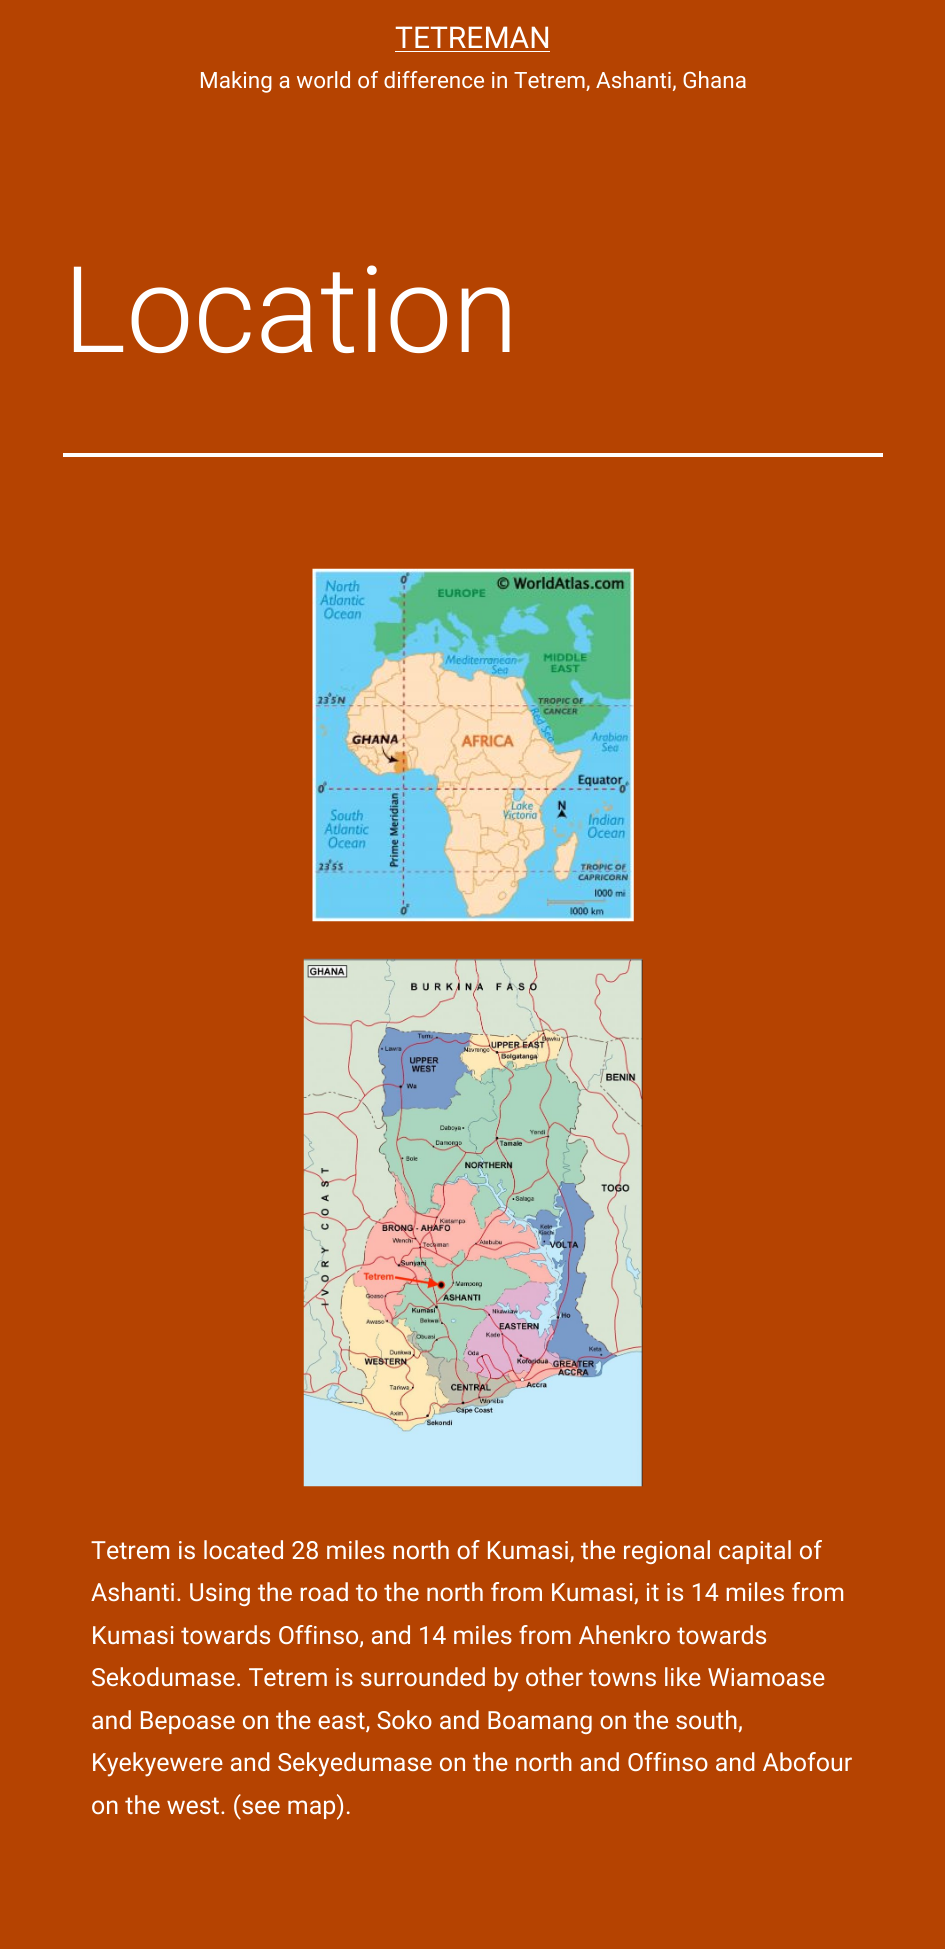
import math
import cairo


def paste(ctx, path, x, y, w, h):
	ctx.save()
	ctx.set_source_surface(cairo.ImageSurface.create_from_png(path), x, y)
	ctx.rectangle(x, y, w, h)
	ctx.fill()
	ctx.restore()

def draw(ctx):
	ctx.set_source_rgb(0.71, 0.263, 0.004)
	ctx.paint()
	ctx.select_font_face('Roboto')
	ctx.set_font_size(30)
	ctx.set_source_rgb(1, 1, 1)
	ctx.move_to(395, 48)
	ctx.show_text('TETREMAN')
	ctx.rectangle(395, 51, 155, 1)
	ctx.fill()
	ctx.set_font_size(22.5)
	ctx.move_to(199, 88)
	ctx.show_text('Making a world of difference in Tetrem, Ashanti, Ghana')
	ctx.rectangle(63, 453, 820, 4)
	ctx.fill()
	ctx.select_font_face('Roboto Light')
	ctx.set_font_size(120)
	ctx.move_to(63, 352)
	ctx.show_text('Location')
	paste(ctx, 'media/1.png', 312, 568, 322, 354)
	paste(ctx, 'media/2.png', 303, 958, 340, 529)
	ctx.select_font_face('Roboto')
	ctx.set_font_size(25)
	for x, y, s in [
		(91, 1559, 'Tetrem is located 28 miles north of Kumasi, the regional capital of'),
		(91, 1601, 'Ashanti. Using the road to the north from Kumasi, it is 14 miles from'),
		(91, 1644, 'Kumasi towards Offinso, and 14 miles from Ahenkro towards'),
		(91, 1686, 'Sekodumase. Tetrem is surrounded by other towns like Wiamoase'),
		(91, 1729, 'and Bepoase on the east, Soko and Boamang on the south,'),
		(91, 1771, 'Kyekyewere and Sekyedumase on the north and Offinso and Abofour'),
		(91, 1814, 'on the west. (see map).'),
	]:
		ctx.move_to(x, y)
		ctx.show_text(s)


surface = cairo.ImageSurface(cairo.FORMAT_RGB24, 945, 1949)
ctx = cairo.Context(surface)
options = cairo.FontOptions()
options.set_hint_metrics(cairo.HINT_METRICS_OFF)
options.set_hint_style(cairo.HINT_STYLE_NONE)
ctx.set_font_options(options)
ctx.set_miter_limit(4)
draw(ctx)
surface.write_to_png('image.png')
